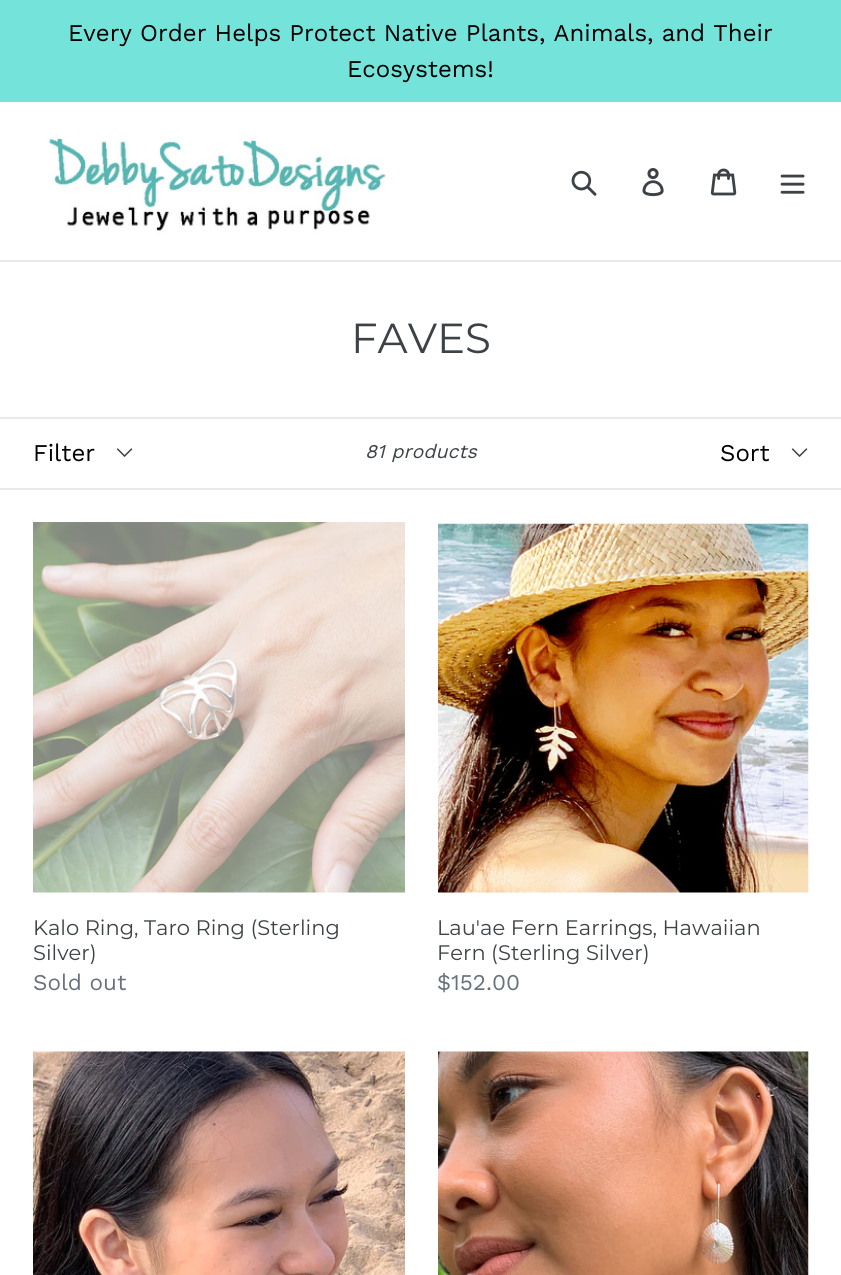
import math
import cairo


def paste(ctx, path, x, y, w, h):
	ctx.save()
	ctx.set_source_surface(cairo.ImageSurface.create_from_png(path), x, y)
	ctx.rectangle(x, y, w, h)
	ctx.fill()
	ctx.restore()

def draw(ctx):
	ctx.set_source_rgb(1, 1, 1)
	ctx.paint()
	ctx.set_source_rgb(0.455, 0.89, 0.855)
	ctx.rectangle(0, 0, 841, 102)
	ctx.fill()
	ctx.select_font_face('Work Sans')
	ctx.set_font_size(24)
	ctx.set_source_rgb(0, 0, 0)
	ctx.move_to(68, 41)
	ctx.show_text('Every Order Helps Protect Native Plants, Animals, and Their')
	ctx.move_to(347, 77)
	ctx.show_text('Ecosystems!')
	ctx.set_source_rgb(0.91, 0.914, 0.922)
	ctx.rectangle(0, 260, 841, 2)
	ctx.fill()
	paste(ctx, 'media/1.png', 48, 133, 343, 100)
	paste(ctx, 'media/2.png', 571, 170, 26, 26)
	paste(ctx, 'media/3.png', 642, 168, 22, 29)
	paste(ctx, 'media/4.png', 710, 168, 27, 28)
	paste(ctx, 'media/5.png', 780, 174, 25, 20)
	ctx.select_font_face('Montserrat')
	ctx.set_font_size(42)
	ctx.set_source_rgb(0.239, 0.259, 0.275)
	ctx.move_to(351, 353)
	ctx.show_text('FAVES')
	ctx.set_source_rgb(0.91, 0.914, 0.922)
	ctx.rectangle(0, 417, 841, 2)
	ctx.fill()
	ctx.rectangle(0, 488, 841, 2)
	ctx.fill()
	paste(ctx, 'media/6.png', 116, 448, 17, 9)
	ctx.select_font_face('Work Sans')
	ctx.set_font_size(24)
	ctx.set_source_rgb(0, 0, 0)
	ctx.move_to(33, 461)
	ctx.show_text('Filter')
	ctx.select_font_face('Work Sans', cairo.FONT_SLANT_ITALIC)
	ctx.set_font_size(19.5)
	ctx.set_source_rgb(0.239, 0.259, 0.275)
	ctx.move_to(365, 458)
	ctx.show_text('81 products')
	paste(ctx, 'media/6.png', 791, 448, 17, 9)
	ctx.select_font_face('Work Sans')
	ctx.set_font_size(24)
	ctx.set_source_rgb(0, 0, 0)
	ctx.move_to(720, 461)
	ctx.show_text('Sort')
	paste(ctx, 'media/7.png', 33, 522, 372, 371)
	ctx.select_font_face('Montserrat')
	ctx.set_font_size(21)
	ctx.set_source_rgb(0.239, 0.259, 0.275)
	ctx.move_to(33, 935)
	ctx.show_text('Kalo Ring, Taro Ring (Sterling')
	ctx.move_to(33, 960)
	ctx.show_text('Silver)')
	ctx.select_font_face('Work Sans')
	ctx.set_font_size(22.5)
	ctx.set_source_rgb(0.412, 0.447, 0.482)
	ctx.move_to(33, 990)
	ctx.show_text('Sold out')
	paste(ctx, 'media/8.png', 438, 522, 371, 371)
	ctx.select_font_face('Montserrat')
	ctx.set_font_size(21)
	ctx.set_source_rgb(0.239, 0.259, 0.275)
	ctx.move_to(437, 935)
	ctx.show_text('Lau\'ae Fern Earrings, Hawaiian')
	ctx.move_to(437, 960)
	ctx.show_text('Fern (Sterling Silver)')
	ctx.select_font_face('Work Sans')
	ctx.set_font_size(22.5)
	ctx.set_source_rgb(0.412, 0.447, 0.482)
	ctx.move_to(437, 990)
	ctx.show_text('$152.00')
	paste(ctx, 'media/9.png', 33, 1051, 372, 224)
	paste(ctx, 'media/10.png', 438, 1051, 371, 224)


surface = cairo.ImageSurface(cairo.FORMAT_RGB24, 841, 1275)
ctx = cairo.Context(surface)
options = cairo.FontOptions()
options.set_hint_metrics(cairo.HINT_METRICS_OFF)
options.set_hint_style(cairo.HINT_STYLE_NONE)
ctx.set_font_options(options)
ctx.set_miter_limit(4)
draw(ctx)
surface.write_to_png('image.png')
